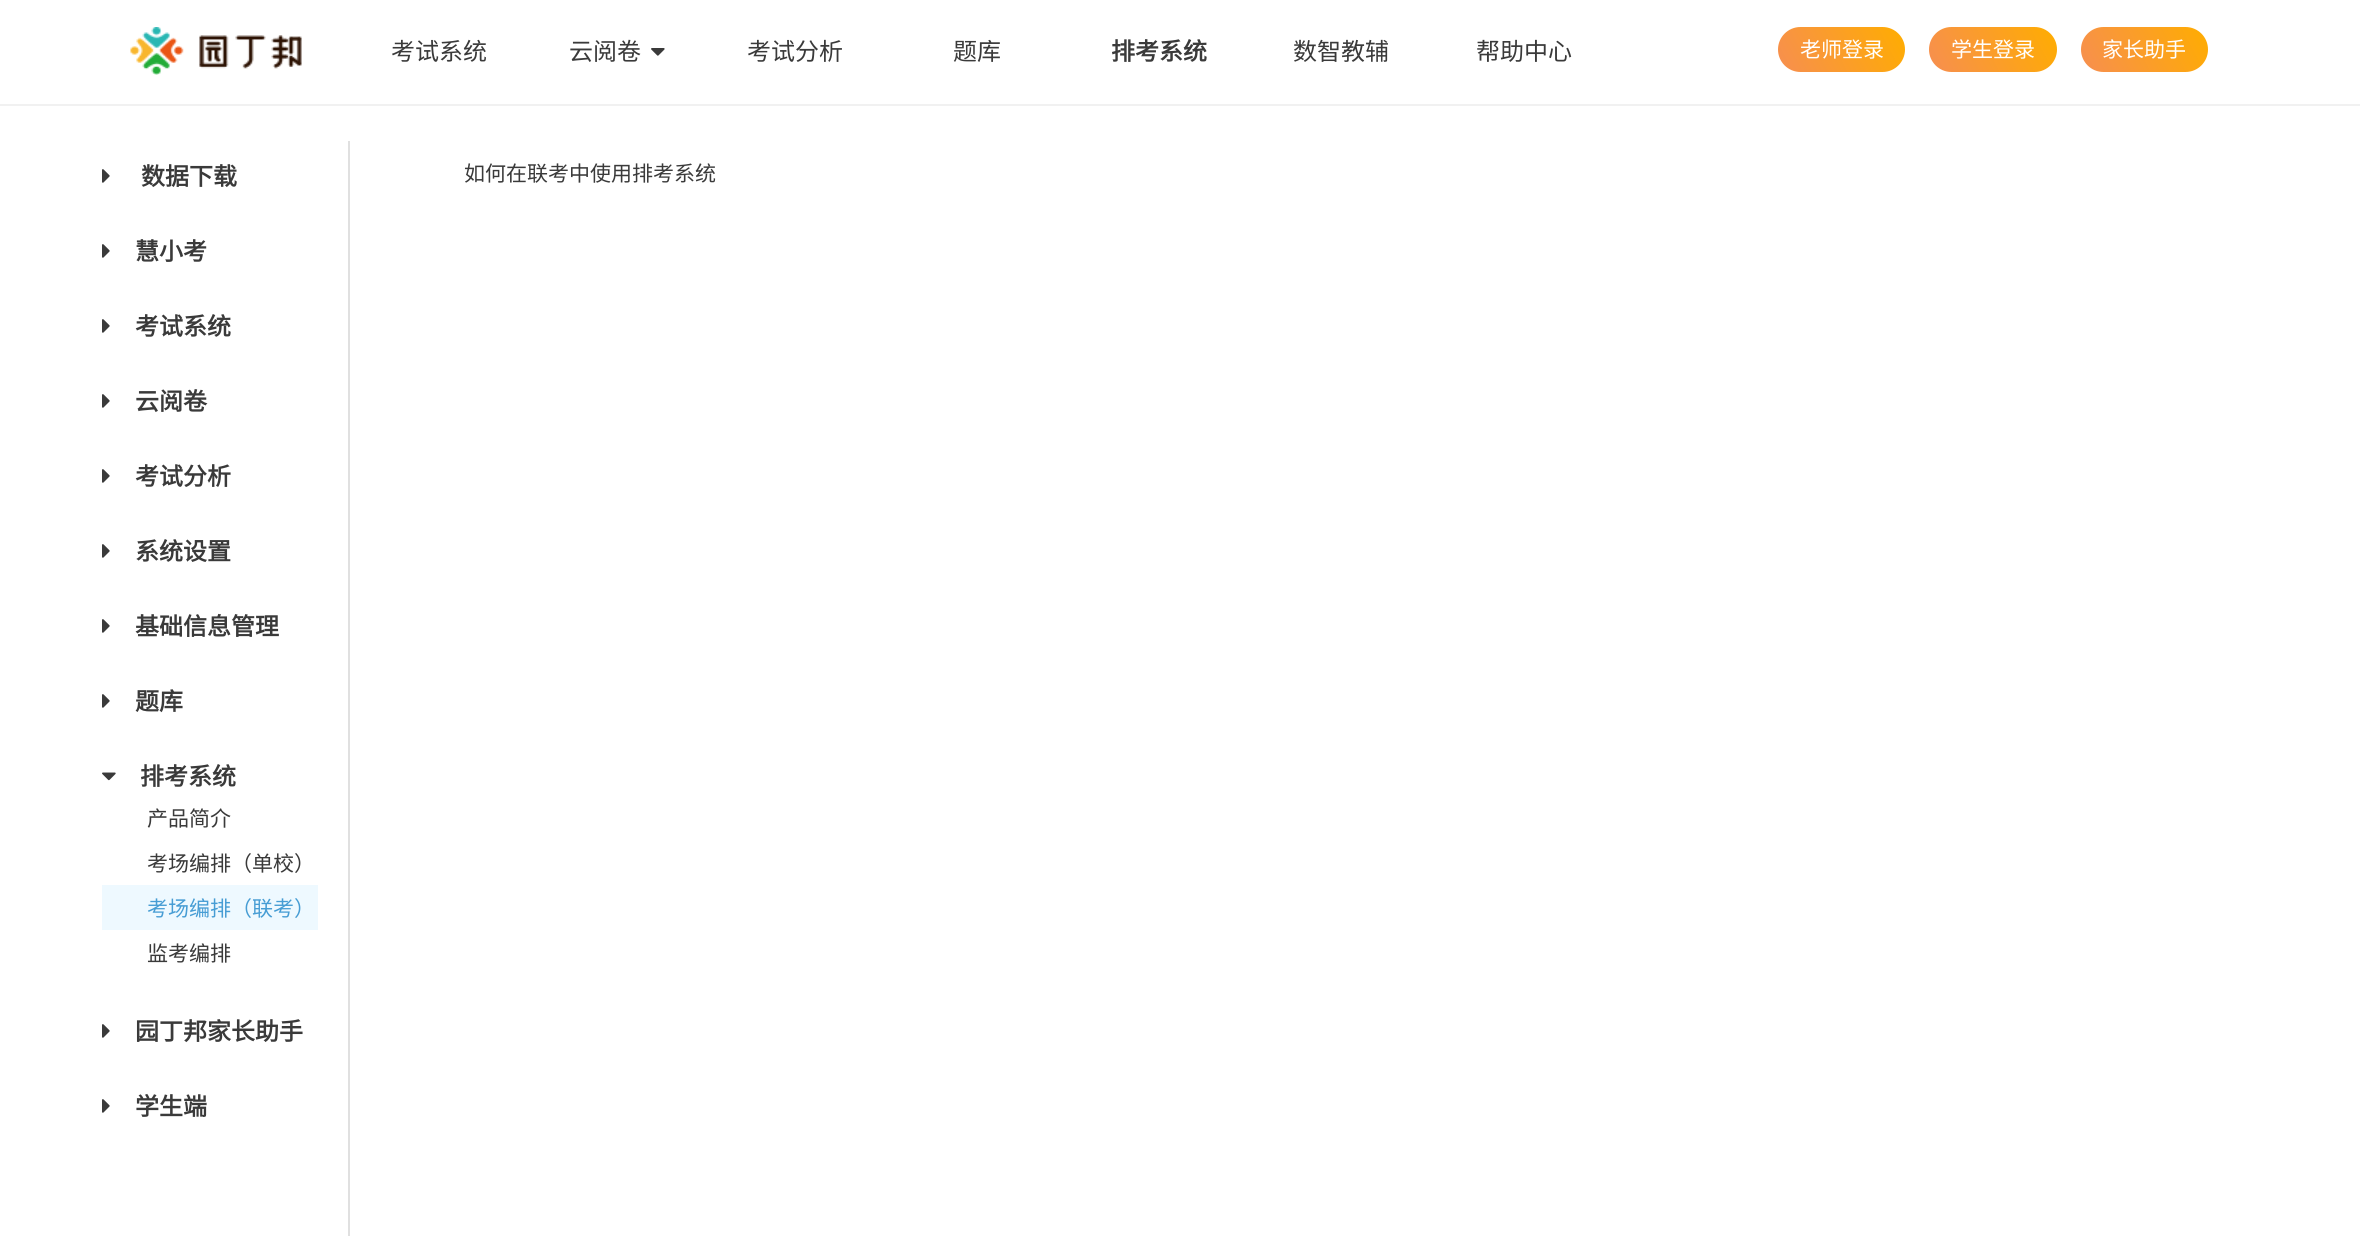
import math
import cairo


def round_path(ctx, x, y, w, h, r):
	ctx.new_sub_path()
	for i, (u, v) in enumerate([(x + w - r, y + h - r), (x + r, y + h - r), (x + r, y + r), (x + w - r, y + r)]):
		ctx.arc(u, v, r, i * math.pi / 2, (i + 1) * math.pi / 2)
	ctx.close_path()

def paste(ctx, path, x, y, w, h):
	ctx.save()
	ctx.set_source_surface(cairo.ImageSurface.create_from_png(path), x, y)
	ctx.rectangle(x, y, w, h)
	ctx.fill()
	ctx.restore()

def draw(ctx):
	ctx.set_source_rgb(1, 1, 1)
	ctx.paint()
	paste(ctx, 'media/1.png', 130, 27, 172, 48)
	ctx.select_font_face('Noto Sans CJK SC')
	ctx.set_font_size(24)
	ctx.set_source_rgb(0.227, 0.227, 0.227)
	ctx.move_to(391, 60)
	ctx.show_text('考试系统')
	ctx.move_to(569, 60)
	ctx.show_text('云阅卷')
	paste(ctx, 'media/2.png', 651, 48, 14, 8)
	ctx.move_to(747, 60)
	ctx.show_text('考试分析')
	ctx.move_to(953, 60)
	ctx.show_text('题库')
	ctx.select_font_face('Noto Sans CJK SC', cairo.FONT_SLANT_NORMAL, cairo.FONT_WEIGHT_BOLD)
	ctx.move_to(1111, 60)
	ctx.show_text('排考系统')
	ctx.select_font_face('Noto Sans CJK SC')
	ctx.move_to(1293, 60)
	ctx.show_text('数智教辅')
	ctx.move_to(1476, 60)
	ctx.show_text('帮助中心')
	gradient = cairo.LinearGradient(1900, 18, 1782, 81)
	gradient.add_color_stop_rgba(0, 1, 0.678, 0, 1)
	gradient.add_color_stop_rgba(0.94, 0.969, 0.565, 0.298, 1)
	ctx.set_source(gradient)
	round_path(ctx, 1778, 27, 127, 45, 22.5)
	ctx.fill()
	ctx.set_font_size(21)
	ctx.set_source_rgb(1, 1, 1)
	ctx.move_to(1800, 57)
	ctx.show_text('老师登录')
	gradient = cairo.LinearGradient(2052, 18, 1934, 81)
	gradient.add_color_stop_rgba(0, 1, 0.678, 0, 1)
	gradient.add_color_stop_rgba(0.94, 0.969, 0.565, 0.298, 1)
	ctx.set_source(gradient)
	round_path(ctx, 1929, 27, 128, 45, 22.5)
	ctx.fill()
	ctx.set_source_rgb(1, 1, 1)
	ctx.move_to(1951, 57)
	ctx.show_text('学生登录')
	gradient = cairo.LinearGradient(2203, 18, 2085, 81)
	gradient.add_color_stop_rgba(0, 1, 0.678, 0, 1)
	gradient.add_color_stop_rgba(0.94, 0.969, 0.565, 0.298, 1)
	ctx.set_source(gradient)
	round_path(ctx, 2081, 27, 127, 45, 22.5)
	ctx.fill()
	ctx.set_source_rgb(1, 1, 1)
	ctx.move_to(2102, 57)
	ctx.show_text('家长助手')
	ctx.set_source_rgb(0.945, 0.945, 0.945)
	ctx.rectangle(0, 104, 2360, 2)
	ctx.fill()
	ctx.set_source_rgb(0.878, 0.878, 0.878)
	ctx.rectangle(348, 141, 2, 1095)
	ctx.fill()
	paste(ctx, 'media/3.png', 102, 169, 8, 14)
	ctx.select_font_face('Noto Sans CJK SC', cairo.FONT_SLANT_NORMAL, cairo.FONT_WEIGHT_BOLD)
	ctx.set_font_size(24)
	ctx.set_source_rgb(0.227, 0.227, 0.227)
	ctx.move_to(141, 185)
	ctx.show_text('数据下载')
	paste(ctx, 'media/3.png', 102, 244, 8, 14)
	ctx.move_to(135, 260)
	ctx.show_text('慧小考')
	paste(ctx, 'media/3.png', 102, 319, 8, 14)
	ctx.move_to(135, 335)
	ctx.show_text('考试系统')
	paste(ctx, 'media/3.png', 102, 394, 8, 14)
	ctx.move_to(135, 410)
	ctx.show_text('云阅卷')
	paste(ctx, 'media/3.png', 102, 469, 8, 14)
	ctx.move_to(135, 485)
	ctx.show_text('考试分析')
	paste(ctx, 'media/3.png', 102, 544, 8, 14)
	ctx.move_to(135, 560)
	ctx.show_text('系统设置')
	paste(ctx, 'media/3.png', 102, 619, 8, 14)
	ctx.move_to(135, 635)
	ctx.show_text('基础信息管理')
	paste(ctx, 'media/3.png', 102, 694, 8, 14)
	ctx.move_to(135, 710)
	ctx.show_text('题库')
	paste(ctx, 'media/4.png', 102, 772, 14, 9)
	ctx.move_to(140, 785)
	ctx.show_text('排考系统')
	ctx.select_font_face('Noto Sans CJK SC')
	ctx.set_font_size(21)
	ctx.move_to(147, 826)
	ctx.show_text('产品简介')
	ctx.move_to(147, 871)
	ctx.show_text('考场编排（单校）')
	ctx.set_source_rgb(0.933, 0.976, 1)
	ctx.rectangle(102, 885, 216, 45)
	ctx.fill()
	ctx.set_source_rgb(0.278, 0.616, 0.831)
	ctx.move_to(147, 916)
	ctx.show_text('考场编排（联考）')
	ctx.set_source_rgb(0.227, 0.227, 0.227)
	ctx.move_to(147, 961)
	ctx.show_text('监考编排')
	paste(ctx, 'media/3.png', 102, 1024, 8, 14)
	ctx.select_font_face('Noto Sans CJK SC', cairo.FONT_SLANT_NORMAL, cairo.FONT_WEIGHT_BOLD)
	ctx.set_font_size(24)
	ctx.move_to(135, 1040)
	ctx.show_text('园丁邦家长助手')
	paste(ctx, 'media/3.png', 102, 1099, 8, 14)
	ctx.move_to(135, 1115)
	ctx.show_text('学生端')
	ctx.select_font_face('Noto Sans CJK SC')
	ctx.set_font_size(21)
	ctx.move_to(464, 181)
	ctx.show_text('如何在联考中使用排考系统')


surface = cairo.ImageSurface(cairo.FORMAT_RGB24, 2360, 1236)
ctx = cairo.Context(surface)
options = cairo.FontOptions()
options.set_hint_metrics(cairo.HINT_METRICS_OFF)
options.set_hint_style(cairo.HINT_STYLE_NONE)
ctx.set_font_options(options)
ctx.set_miter_limit(4)
draw(ctx)
surface.write_to_png('image.png')
